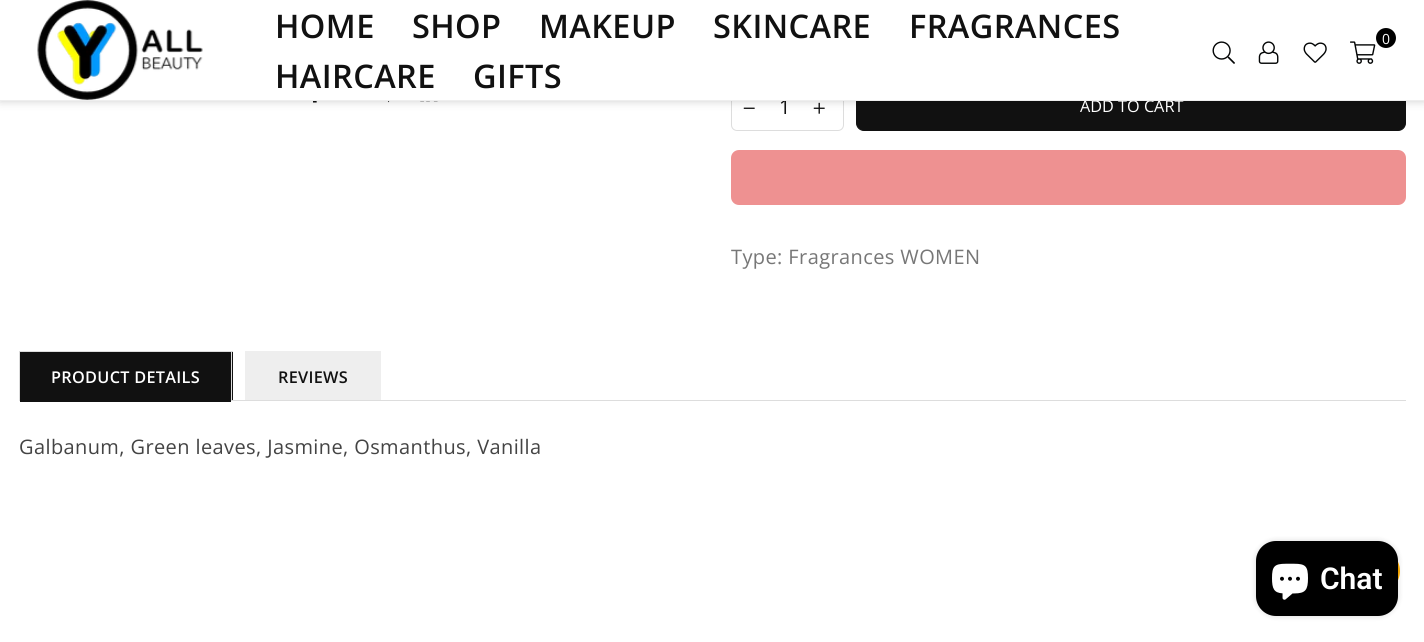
import math
import cairo


def write_spaced(ctx, x, y, s, letter, word):
	ctx.move_to(x, y)
	for ch in s:
		ctx.show_text(ch)
		ctx.rel_move_to(letter + word * (ch == ' '), 0)

def round_path(ctx, x, y, w, h, r):
	ctx.new_sub_path()
	for i, (u, v) in enumerate([(x + w - r, y + h - r), (x + r, y + h - r), (x + r, y + r), (x + w - r, y + r)]):
		ctx.arc(u, v, r, i * math.pi / 2, (i + 1) * math.pi / 2)
	ctx.close_path()

def blur_box(ctx, x, y, w, h, r, blur, alpha):
	ctx.push_group_with_content(cairo.CONTENT_ALPHA)
	ctx.set_operator(cairo.OPERATOR_SOURCE)
	for i in range(15, -16, -2):
		e = blur * i / 6
		if min(w, h) + 2 * e > 0:
			ctx.set_source_rgba(0, 0, 0, alpha * math.erfc((i - 1) / 8.5) / 2)
			round_path(ctx, x - e, y - e, w + 2 * e, h + 2 * e, max(0, min(r + e + blur * .6, min(w, h) / 2 + e)))
			ctx.fill()
	ctx.mask(ctx.pop_group())

def paste(ctx, path, x, y, w, h):
	ctx.save()
	ctx.set_source_surface(cairo.ImageSurface.create_from_png(path), x, y)
	ctx.rectangle(x, y, w, h)
	ctx.fill()
	ctx.restore()

def draw(ctx):
	ctx.set_source_rgb(1, 1, 1)
	ctx.paint()
	paste(ctx, 'media/6.png', 313, 101, 4, 2)
	paste(ctx, 'media/7.png', 388, 101, 2, 2)
	paste(ctx, 'media/8.png', 420, 101, 18, 1)
	round_path(ctx, 731.5, 81.5, 112, 49, 5.5)
	ctx.set_source_rgb(0.867, 0.867, 0.867)
	ctx.set_line_width(1)
	ctx.stroke()
	paste(ctx, 'media/9.png', 743, 107, 12, 2)
	paste(ctx, 'media/10.png', 813, 102, 12, 12)
	ctx.set_source_rgb(0.067, 0.067, 0.067)
	round_path(ctx, 856.5, 81.5, 549, 49, 7.5)
	ctx.fill_preserve()
	ctx.stroke()
	ctx.set_source_rgb(0, 0, 0)
	blur_box(ctx, 0, 0, 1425, 101, 0, 4.5, 0.2)
	ctx.select_font_face('Open Sans')
	ctx.set_font_size(20)
	ctx.set_source_rgb(0.067, 0.067, 0.067)
	ctx.move_to(779, 114)
	ctx.show_text('1')
	ctx.set_source_rgb(1, 1, 1)
	ctx.rectangle(0, 0, 1424, 100)
	ctx.fill()
	ctx.set_font_size(16.25)
	ctx.move_to(1080, 112)
	ctx.show_text('ADD TO CART')
	ctx.set_source_rgb(0.933, 0.933, 0.933)
	ctx.rectangle(0, 100, 1424, 1)
	ctx.fill()
	paste(ctx, 'media/1.png', 37, 0, 166, 100)
	ctx.select_font_face('Open Sans SemiBold')
	ctx.set_font_size(32.5)
	ctx.set_source_rgb(0.067, 0.067, 0.067)
	for x, y, s in [
		(275, 38, 'HOME'),
		(412, 38, 'SHOP'),
		(539, 38, 'MAKEUP'),
		(713, 38, 'SKINCARE'),
		(909, 38, 'FRAGRANCES'),
		(275, 88, 'HAIRCARE'),
		(473, 88, 'GIFTS'),
	]:
		write_spaced(ctx, x, y, s, 0.4, 0)
	ctx.set_source_rgb(0, 0, 0)
	ctx.new_path()
	ctx.arc(1386, 38, 10, 0, 2 * math.pi)
	ctx.fill()
	ctx.select_font_face('Open Sans')
	ctx.set_font_size(14)
	ctx.set_source_rgb(1, 1, 1)
	write_spaced(ctx, 1382, 44, '0', 0.4, 0)
	paste(ctx, 'media/2.png', 1350, 41, 26, 23)
	paste(ctx, 'media/3.png', 1212, 41, 23, 23)
	paste(ctx, 'media/4.png', 1258, 41, 21, 23)
	paste(ctx, 'media/5.png', 1303, 42, 24, 21)
	ctx.set_source_rgb(0.933, 0.569, 0.569)
	round_path(ctx, 731, 150, 675, 55, 8)
	ctx.fill()
	ctx.set_font_size(20)
	ctx.set_source_rgb(0.467, 0.467, 0.467)
	write_spaced(ctx, 731, 264, 'Type: Fragrances WOMEN', 0.4, 0)
	ctx.set_source_rgb(0.867, 0.867, 0.867)
	ctx.rectangle(19, 400, 1387, 1)
	ctx.fill()
	ctx.set_source_rgb(0.067, 0.067, 0.067)
	ctx.rectangle(20, 352, 213, 48)
	ctx.fill()
	ctx.set_source_rgb(0.867, 0.867, 0.867)
	ctx.rectangle(19, 351, 214, 1)
	ctx.rectangle(231, 351, 1, 49)
	ctx.rectangle(19, 351, 1, 49)
	ctx.fill()
	ctx.select_font_face('Open Sans SemiBold')
	ctx.set_font_size(16.25)
	ctx.set_source_rgb(1, 1, 1)
	write_spaced(ctx, 51, 383, 'PRODUCT DETAILS', 0.3, 0)
	ctx.set_source_rgb(0.067, 0.067, 0.067)
	ctx.rectangle(20, 400, 211, 2)
	ctx.fill()
	ctx.set_source_rgb(0.933, 0.933, 0.933)
	ctx.rectangle(245, 351, 136, 49)
	ctx.fill()
	ctx.set_source_rgb(0.067, 0.067, 0.067)
	write_spaced(ctx, 278, 383, 'REVIEWS', 0.3, 0)
	ctx.select_font_face('Open Sans')
	ctx.set_font_size(20)
	ctx.set_source_rgb(0.267, 0.267, 0.267)
	write_spaced(ctx, 19, 454, 'Galbanum, Green leaves, Jasmine, Osmanthus, Vanilla', 0.4, 0)
	ctx.set_source_rgb(1, 0.678, 0)
	ctx.new_path()
	ctx.arc(1378, 571, 22, 0, 2 * math.pi)
	ctx.fill()
	ctx.set_source_rgb(0, 0, 0)
	blur_box(ctx, 1256, 541, 142, 75, 20, 3, 0.15)
	ctx.set_source_rgb(0, 0, 0)
	round_path(ctx, 1256, 541, 142, 75, 20)
	ctx.fill()
	paste(ctx, 'media/11.png', 1272, 563, 36, 37)
	ctx.select_font_face('Roboto SemiBold')
	ctx.set_font_size(30)
	ctx.set_source_rgb(1, 1, 1)
	ctx.move_to(1320, 589)
	ctx.show_text('Chat')


surface = cairo.ImageSurface(cairo.FORMAT_RGB24, 1424, 642)
ctx = cairo.Context(surface)
options = cairo.FontOptions()
options.set_hint_metrics(cairo.HINT_METRICS_OFF)
options.set_hint_style(cairo.HINT_STYLE_NONE)
ctx.set_font_options(options)
ctx.set_miter_limit(4)
draw(ctx)
surface.write_to_png('image.png')
